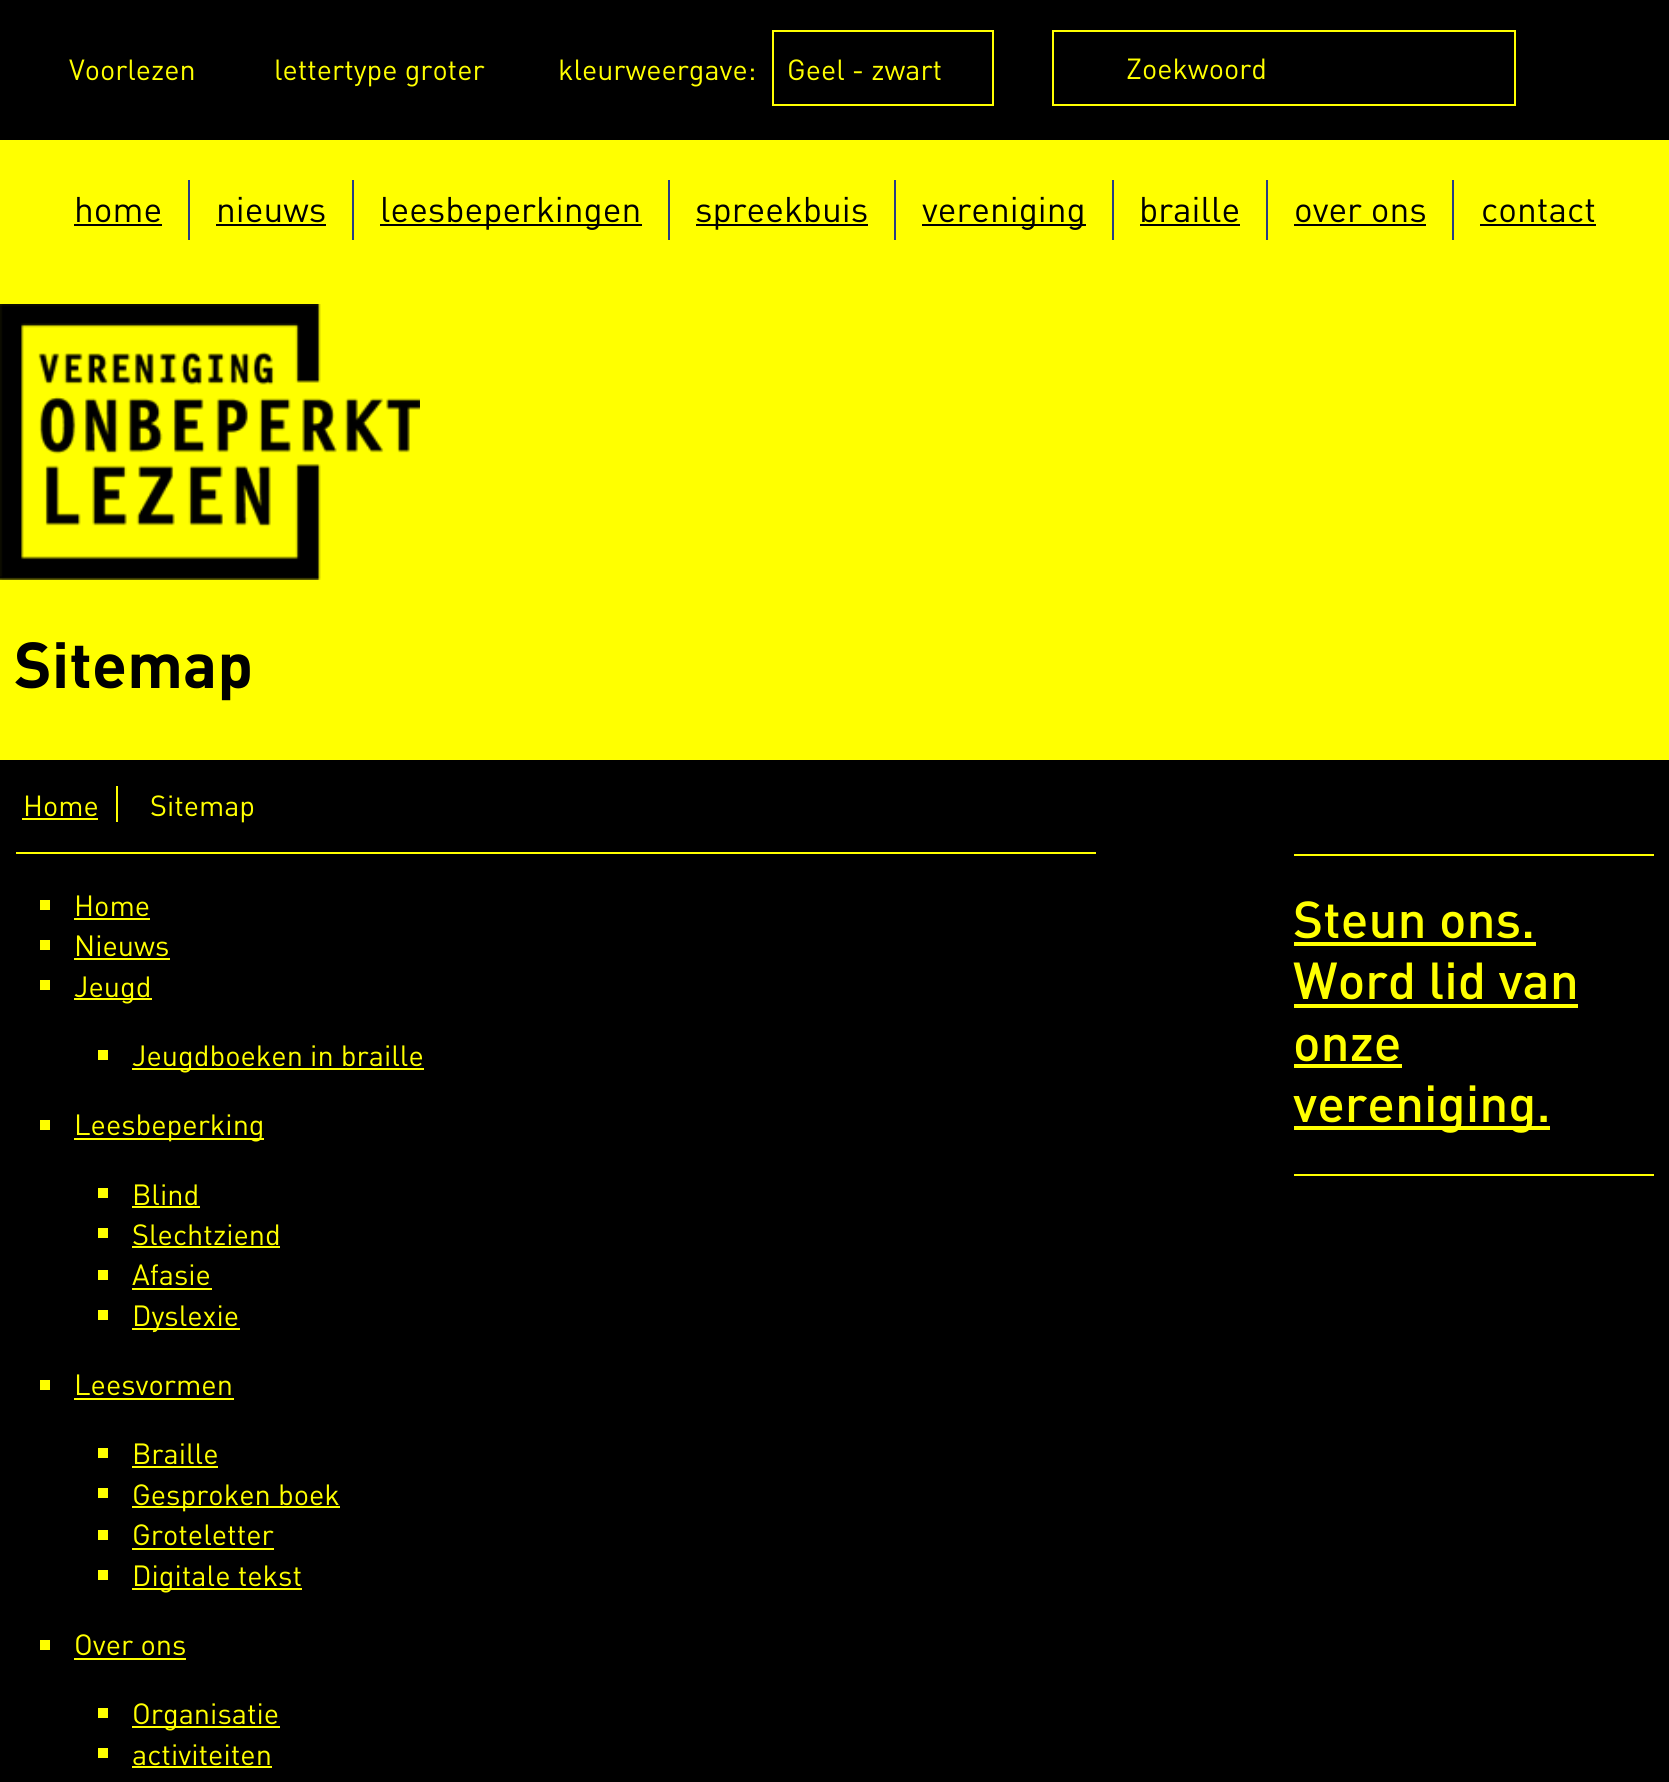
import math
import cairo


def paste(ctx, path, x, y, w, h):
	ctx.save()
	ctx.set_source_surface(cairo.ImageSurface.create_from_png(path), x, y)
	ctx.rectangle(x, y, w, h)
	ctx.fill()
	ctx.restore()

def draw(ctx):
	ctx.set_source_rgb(0, 0, 0)
	ctx.paint()
	ctx.select_font_face('DIN')
	ctx.set_font_size(28.75)
	ctx.set_source_rgb(1, 1, 0)
	for x, y, s in [
		(69, 80, 'Voorlezen'),
		(274, 80, 'lettertype groter'),
		(558, 80, 'kleurweergave:'),
	]:
		ctx.move_to(x, y)
		ctx.show_text(s)
	ctx.rectangle(773, 31, 220, 74)
	ctx.stroke()
	ctx.move_to(787, 80)
	ctx.show_text('Geel - zwart')
	ctx.rectangle(1053, 31, 462, 74)
	ctx.stroke()
	ctx.move_to(1126, 79)
	ctx.show_text('Zoekwoord')
	ctx.rectangle(0, 140, 1669, 620)
	ctx.fill()
	ctx.set_font_size(35.25)
	ctx.set_source_rgb(0, 0, 0)
	ctx.move_to(74, 222)
	ctx.show_text('home')
	ctx.rectangle(74, 224, 88, 2)
	ctx.fill()
	ctx.set_source_rgb(0.153, 0.243, 0.518)
	ctx.rectangle(188, 180, 2, 60)
	ctx.fill()
	ctx.set_source_rgb(0, 0, 0)
	ctx.move_to(216, 222)
	ctx.show_text('nieuws')
	ctx.rectangle(216, 224, 110, 2)
	ctx.fill()
	ctx.set_source_rgb(0.153, 0.243, 0.518)
	ctx.rectangle(352, 180, 2, 60)
	ctx.fill()
	ctx.set_source_rgb(0, 0, 0)
	ctx.rectangle(380, 224, 262, 2)
	ctx.fill()
	ctx.move_to(380, 222)
	ctx.show_text('leesbeperkingen')
	ctx.set_source_rgb(0.153, 0.243, 0.518)
	ctx.rectangle(668, 180, 2, 60)
	ctx.fill()
	ctx.set_source_rgb(0, 0, 0)
	ctx.rectangle(696, 224, 172, 2)
	ctx.fill()
	ctx.move_to(695, 222)
	ctx.show_text('spreekbuis')
	ctx.set_source_rgb(0.153, 0.243, 0.518)
	ctx.rectangle(894, 180, 2, 60)
	ctx.fill()
	ctx.set_source_rgb(0, 0, 0)
	ctx.rectangle(922, 224, 164, 2)
	ctx.fill()
	ctx.move_to(922, 222)
	ctx.show_text('vereniging')
	ctx.set_source_rgb(0.153, 0.243, 0.518)
	ctx.rectangle(1112, 180, 2, 60)
	ctx.fill()
	ctx.set_source_rgb(0, 0, 0)
	ctx.move_to(1139, 222)
	ctx.show_text('braille')
	ctx.rectangle(1140, 224, 100, 2)
	ctx.fill()
	ctx.set_source_rgb(0.153, 0.243, 0.518)
	ctx.rectangle(1266, 180, 2, 60)
	ctx.fill()
	ctx.set_source_rgb(0, 0, 0)
	ctx.move_to(1294, 222)
	ctx.show_text('over ons')
	ctx.rectangle(1294, 224, 132, 2)
	ctx.fill()
	ctx.set_source_rgb(0.153, 0.243, 0.518)
	ctx.rectangle(1452, 180, 2, 60)
	ctx.fill()
	ctx.set_source_rgb(0, 0, 0)
	ctx.move_to(1481, 222)
	ctx.show_text('contact')
	ctx.rectangle(1480, 224, 116, 2)
	ctx.fill()
	paste(ctx, 'media/1.png', 0, 304, 420, 276)
	ctx.select_font_face('DIN', cairo.FONT_SLANT_NORMAL, cairo.FONT_WEIGHT_BOLD)
	ctx.set_font_size(64)
	ctx.move_to(14, 688)
	ctx.show_text('Sitemap')
	ctx.set_source_rgb(1, 1, 0)
	ctx.rectangle(16, 852, 1080, 2)
	ctx.fill()
	ctx.select_font_face('DIN')
	ctx.set_font_size(28.75)
	ctx.move_to(23, 816)
	ctx.show_text('Home')
	ctx.rectangle(116, 786, 2, 36)
	ctx.fill()
	ctx.rectangle(22, 818, 76, 2)
	ctx.fill()
	ctx.move_to(150, 816)
	ctx.show_text('Sitemap')
	ctx.rectangle(40, 900, 10, 10)
	ctx.fill()
	ctx.set_font_size(28.9)
	ctx.move_to(74, 916)
	ctx.show_text('Home')
	ctx.rectangle(74, 918, 76, 2)
	ctx.fill()
	ctx.rectangle(40, 940, 10, 10)
	ctx.fill()
	ctx.move_to(74, 956)
	ctx.show_text('Nieuws')
	ctx.rectangle(74, 958, 96, 2)
	ctx.rectangle(40, 980, 10, 10)
	ctx.rectangle(74, 998, 78, 2)
	ctx.fill()
	ctx.move_to(74, 997)
	ctx.show_text('Jeugd')
	ctx.rectangle(98, 1050, 10, 10)
	ctx.fill()
	ctx.rectangle(132, 1068, 292, 2)
	ctx.fill()
	ctx.move_to(132, 1066)
	ctx.show_text('Jeugdboeken in braille')
	ctx.rectangle(40, 1120, 10, 10)
	ctx.fill()
	ctx.rectangle(74, 1138, 190, 2)
	ctx.fill()
	ctx.move_to(74, 1135)
	ctx.show_text('Leesbeperking')
	ctx.rectangle(98, 1188, 10, 10)
	ctx.fill()
	ctx.move_to(132, 1205)
	ctx.show_text('Blind')
	ctx.rectangle(132, 1206, 68, 2)
	ctx.fill()
	ctx.rectangle(98, 1228, 10, 10)
	ctx.fill()
	ctx.move_to(132, 1245)
	ctx.show_text('Slechtziend')
	ctx.rectangle(132, 1246, 148, 2)
	ctx.fill()
	ctx.rectangle(98, 1270, 10, 10)
	ctx.fill()
	ctx.move_to(132, 1285)
	ctx.show_text('Afasie')
	ctx.rectangle(132, 1288, 80, 2)
	ctx.rectangle(98, 1310, 10, 10)
	ctx.rectangle(132, 1328, 108, 2)
	ctx.fill()
	ctx.move_to(132, 1326)
	ctx.show_text('Dyslexie')
	ctx.rectangle(40, 1380, 10, 10)
	ctx.fill()
	ctx.move_to(74, 1395)
	ctx.show_text('Leesvormen')
	ctx.rectangle(74, 1398, 160, 2)
	ctx.fill()
	ctx.rectangle(98, 1448, 10, 10)
	ctx.fill()
	ctx.move_to(132, 1464)
	ctx.show_text('Braille')
	ctx.rectangle(132, 1466, 86, 2)
	ctx.rectangle(98, 1488, 10, 10)
	ctx.rectangle(132, 1506, 208, 2)
	ctx.fill()
	ctx.move_to(132, 1505)
	ctx.show_text('Gesproken boek')
	ctx.rectangle(98, 1530, 10, 10)
	ctx.fill()
	ctx.move_to(132, 1545)
	ctx.show_text('Groteletter')
	ctx.rectangle(132, 1548, 142, 2)
	ctx.rectangle(98, 1570, 10, 10)
	ctx.rectangle(132, 1588, 170, 2)
	ctx.fill()
	ctx.move_to(132, 1586)
	ctx.show_text('Digitale tekst')
	ctx.rectangle(40, 1640, 10, 10)
	ctx.fill()
	ctx.move_to(74, 1655)
	ctx.show_text('Over ons')
	ctx.rectangle(74, 1658, 112, 2)
	ctx.rectangle(98, 1708, 10, 10)
	ctx.rectangle(132, 1726, 148, 2)
	ctx.fill()
	ctx.move_to(132, 1724)
	ctx.show_text('Organisatie')
	ctx.rectangle(98, 1748, 10, 10)
	ctx.fill()
	ctx.move_to(132, 1765)
	ctx.show_text('activiteiten')
	ctx.rectangle(132, 1766, 140, 2)
	ctx.rectangle(1294, 854, 360, 2)
	ctx.rectangle(1294, 1174, 360, 2)
	ctx.fill()
	ctx.select_font_face('DIN Medium')
	ctx.set_font_size(51.25)
	ctx.move_to(1293, 938)
	ctx.show_text('Steun ons.')
	ctx.rectangle(1294, 942, 242, 4)
	ctx.fill()
	ctx.move_to(1293, 999)
	ctx.show_text('Word lid van')
	ctx.rectangle(1294, 1004, 284, 4)
	ctx.fill()
	ctx.move_to(1293, 1061)
	ctx.show_text('onze')
	ctx.rectangle(1294, 1064, 108, 4)
	ctx.fill()
	ctx.rectangle(1294, 1126, 256, 4)
	ctx.fill()
	ctx.move_to(1293, 1122)
	ctx.show_text('vereniging.')


surface = cairo.ImageSurface(cairo.FORMAT_RGB24, 1669, 1782)
ctx = cairo.Context(surface)
options = cairo.FontOptions()
options.set_hint_metrics(cairo.HINT_METRICS_OFF)
options.set_hint_style(cairo.HINT_STYLE_NONE)
ctx.set_font_options(options)
ctx.set_miter_limit(4)
draw(ctx)
surface.write_to_png('image.png')
